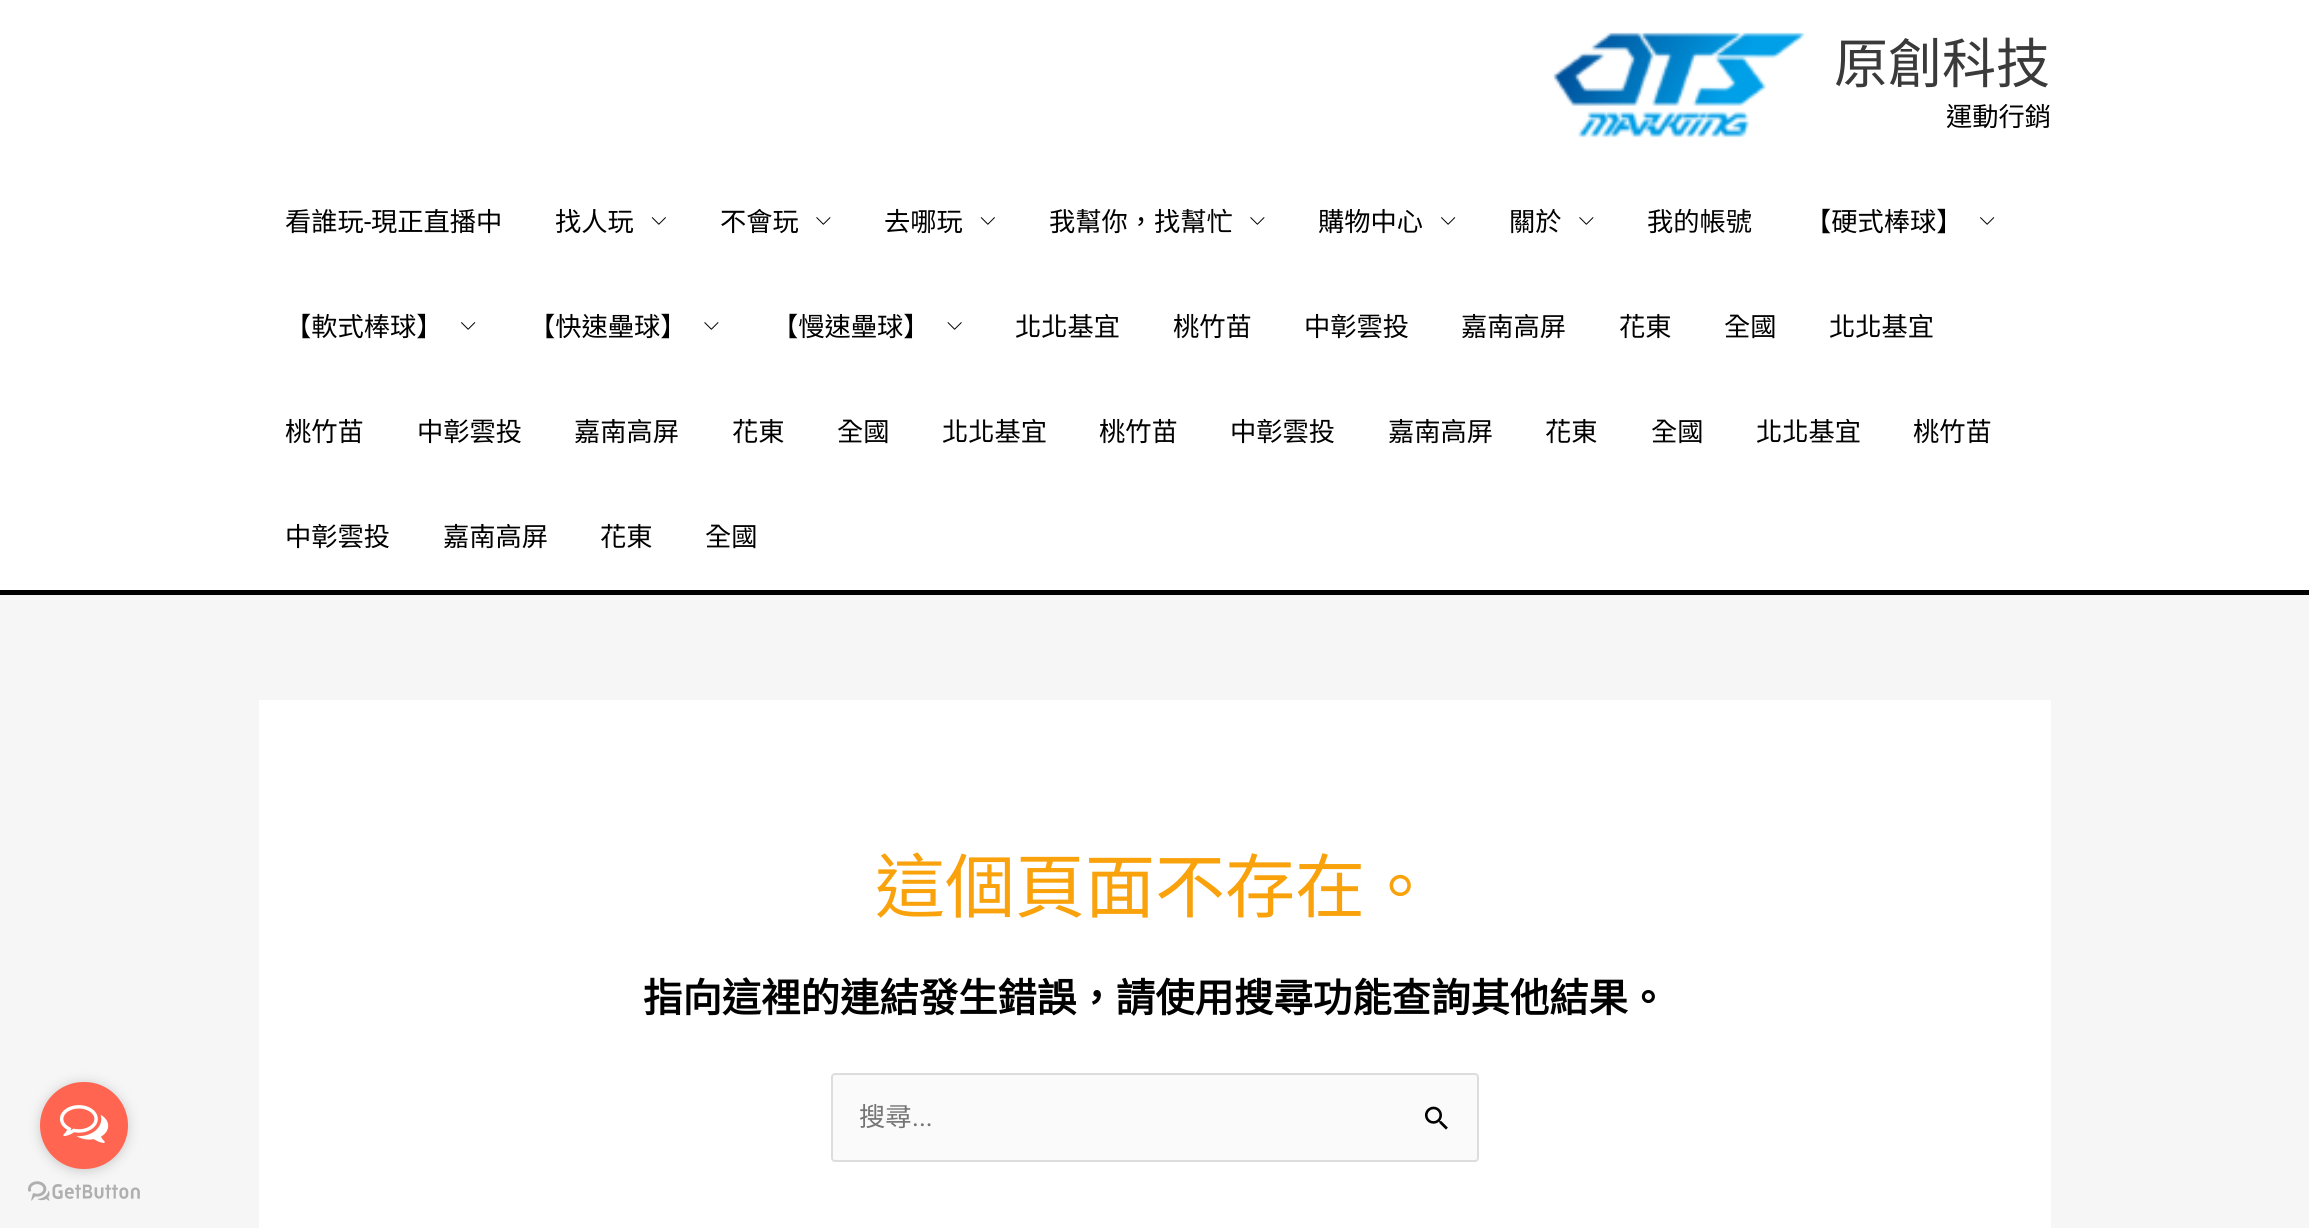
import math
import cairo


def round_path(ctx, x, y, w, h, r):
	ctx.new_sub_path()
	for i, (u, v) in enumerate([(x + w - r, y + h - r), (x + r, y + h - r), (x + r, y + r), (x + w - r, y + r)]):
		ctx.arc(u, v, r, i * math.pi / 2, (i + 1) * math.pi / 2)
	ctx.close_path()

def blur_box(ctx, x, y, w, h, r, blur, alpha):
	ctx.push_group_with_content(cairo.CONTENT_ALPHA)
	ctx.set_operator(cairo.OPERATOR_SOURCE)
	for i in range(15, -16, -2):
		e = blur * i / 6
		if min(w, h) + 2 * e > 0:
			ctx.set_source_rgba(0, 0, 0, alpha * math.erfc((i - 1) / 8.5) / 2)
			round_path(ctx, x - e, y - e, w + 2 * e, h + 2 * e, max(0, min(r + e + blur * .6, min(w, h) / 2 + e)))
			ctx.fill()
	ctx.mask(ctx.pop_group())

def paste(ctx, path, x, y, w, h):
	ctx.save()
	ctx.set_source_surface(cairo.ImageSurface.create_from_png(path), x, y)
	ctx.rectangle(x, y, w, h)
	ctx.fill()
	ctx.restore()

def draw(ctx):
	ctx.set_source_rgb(0.961, 0.961, 0.961)
	ctx.paint()
	paste(ctx, 'media/2.png', 28, 1181, 112, 20)
	ctx.set_source_rgb(0.533, 0.533, 0.533)
	blur_box(ctx, 40, 1083, 88, 88, 44, 6, 0.4)
	ctx.set_source_rgb(1, 0.396, 0.314)
	round_path(ctx, 40, 1082, 88, 87, 43.5)
	ctx.fill()
	paste(ctx, 'media/1.png', 59, 1105, 50, 38)
	ctx.set_source_rgb(1, 1, 1)
	ctx.rectangle(0, 0, 2309, 590)
	ctx.fill()
	ctx.set_source_rgb(0, 0, 0)
	ctx.rectangle(0, 590, 2309, 5)
	ctx.fill()
	paste(ctx, 'media/3.png', 1552, 32, 254, 106)
	ctx.select_font_face('Noto Sans CJK TC')
	ctx.set_font_size(54)
	ctx.set_source_rgb(0.227, 0.227, 0.227)
	ctx.move_to(1834, 83)
	ctx.show_text('原創科技')
	ctx.set_font_size(26.25)
	ctx.set_source_rgb(0, 0, 0)
	ctx.move_to(1946, 126)
	ctx.show_text('運動行銷')
	ctx.move_to(285, 231)
	ctx.show_text('看誰玩')
	ctx.select_font_face('Roboto')
	ctx.move_to(364, 231)
	ctx.show_text('-')
	ctx.select_font_face('Noto Sans CJK TC')
	ctx.move_to(371, 231)
	ctx.show_text('現正直播中')
	ctx.move_to(555, 231)
	ctx.show_text('找人玩')
	paste(ctx, 'media/4.png', 651, 217, 15, 8)
	ctx.move_to(720, 231)
	ctx.show_text('不會玩')
	paste(ctx, 'media/5.png', 816, 217, 15, 8)
	ctx.move_to(884, 231)
	ctx.show_text('去哪玩')
	paste(ctx, 'media/4.png', 980, 217, 15, 8)
	ctx.move_to(1049, 231)
	ctx.show_text('我幫你，找幫忙')
	paste(ctx, 'media/5.png', 1250, 217, 15, 8)
	ctx.move_to(1318, 231)
	ctx.show_text('購物中心')
	paste(ctx, 'media/6.png', 1441, 217, 15, 8)
	ctx.move_to(1509, 231)
	ctx.show_text('關於')
	paste(ctx, 'media/5.png', 1579, 217, 15, 8)
	ctx.move_to(1647, 231)
	ctx.show_text('我的帳號')
	ctx.move_to(1805, 231)
	ctx.show_text('【硬式棒球】')
	paste(ctx, 'media/6.png', 1980, 217, 15, 8)
	ctx.move_to(285, 336)
	ctx.show_text('【軟式棒球】')
	paste(ctx, 'media/6.png', 461, 322, 15, 8)
	ctx.move_to(529, 336)
	ctx.show_text('【快速壘球】')
	paste(ctx, 'media/5.png', 704, 322, 15, 8)
	ctx.move_to(772, 336)
	ctx.show_text('【慢速壘球】')
	paste(ctx, 'media/7.png', 947, 322, 15, 8)
	for x, y, s in [
		(1015, 336, '北北基宜'),
		(1173, 336, '桃竹苗'),
		(1304, 336, '中彰雲投'),
		(1461, 336, '嘉南高屏'),
		(1619, 336, '花東'),
		(1724, 336, '全國'),
		(1829, 336, '北北基宜'),
		(285, 441, '桃竹苗'),
		(417, 441, '中彰雲投'),
		(574, 441, '嘉南高屏'),
		(732, 441, '花東'),
		(837, 441, '全國'),
		(942, 441, '北北基宜'),
		(1099, 441, '桃竹苗'),
		(1230, 441, '中彰雲投'),
		(1388, 441, '嘉南高屏'),
		(1545, 441, '花東'),
		(1651, 441, '全國'),
		(1756, 441, '北北基宜'),
		(1913, 441, '桃竹苗'),
		(285, 546, '中彰雲投'),
		(443, 546, '嘉南高屏'),
		(600, 546, '花東'),
		(705, 546, '全國'),
	]:
		ctx.move_to(x, y)
		ctx.show_text(s)
	ctx.set_source_rgb(1, 1, 1)
	ctx.rectangle(259, 700, 1792, 528)
	ctx.fill()
	ctx.set_font_size(70)
	ctx.set_source_rgb(0.976, 0.635, 0.043)
	ctx.move_to(875, 912)
	ctx.show_text('這個頁面不存在。')
	ctx.select_font_face('Noto Sans CJK TC', cairo.FONT_SLANT_NORMAL, cairo.FONT_WEIGHT_BOLD)
	ctx.set_font_size(39.4)
	ctx.set_source_rgb(0, 0, 0)
	ctx.move_to(643, 1012)
	ctx.show_text('指向這裡的連結發生錯誤，請使用搜尋功能查詢其他結果。')
	ctx.set_source_rgb(0.98, 0.98, 0.98)
	round_path(ctx, 832, 1074, 646, 87, 3)
	ctx.fill_preserve()
	ctx.set_source_rgb(0.867, 0.867, 0.867)
	ctx.stroke()
	ctx.select_font_face('Noto Sans CJK TC')
	ctx.set_font_size(26.25)
	ctx.set_source_rgb(0.459, 0.459, 0.459)
	ctx.move_to(859, 1126)
	ctx.show_text('搜尋')
	ctx.select_font_face('Roboto')
	ctx.move_to(912, 1126)
	ctx.show_text('...')
	paste(ctx, 'media/8.png', 1424, 1106, 24, 24)


surface = cairo.ImageSurface(cairo.FORMAT_RGB24, 2309, 1228)
ctx = cairo.Context(surface)
options = cairo.FontOptions()
options.set_hint_metrics(cairo.HINT_METRICS_OFF)
options.set_hint_style(cairo.HINT_STYLE_NONE)
ctx.set_font_options(options)
ctx.set_miter_limit(4)
draw(ctx)
surface.write_to_png('image.png')
